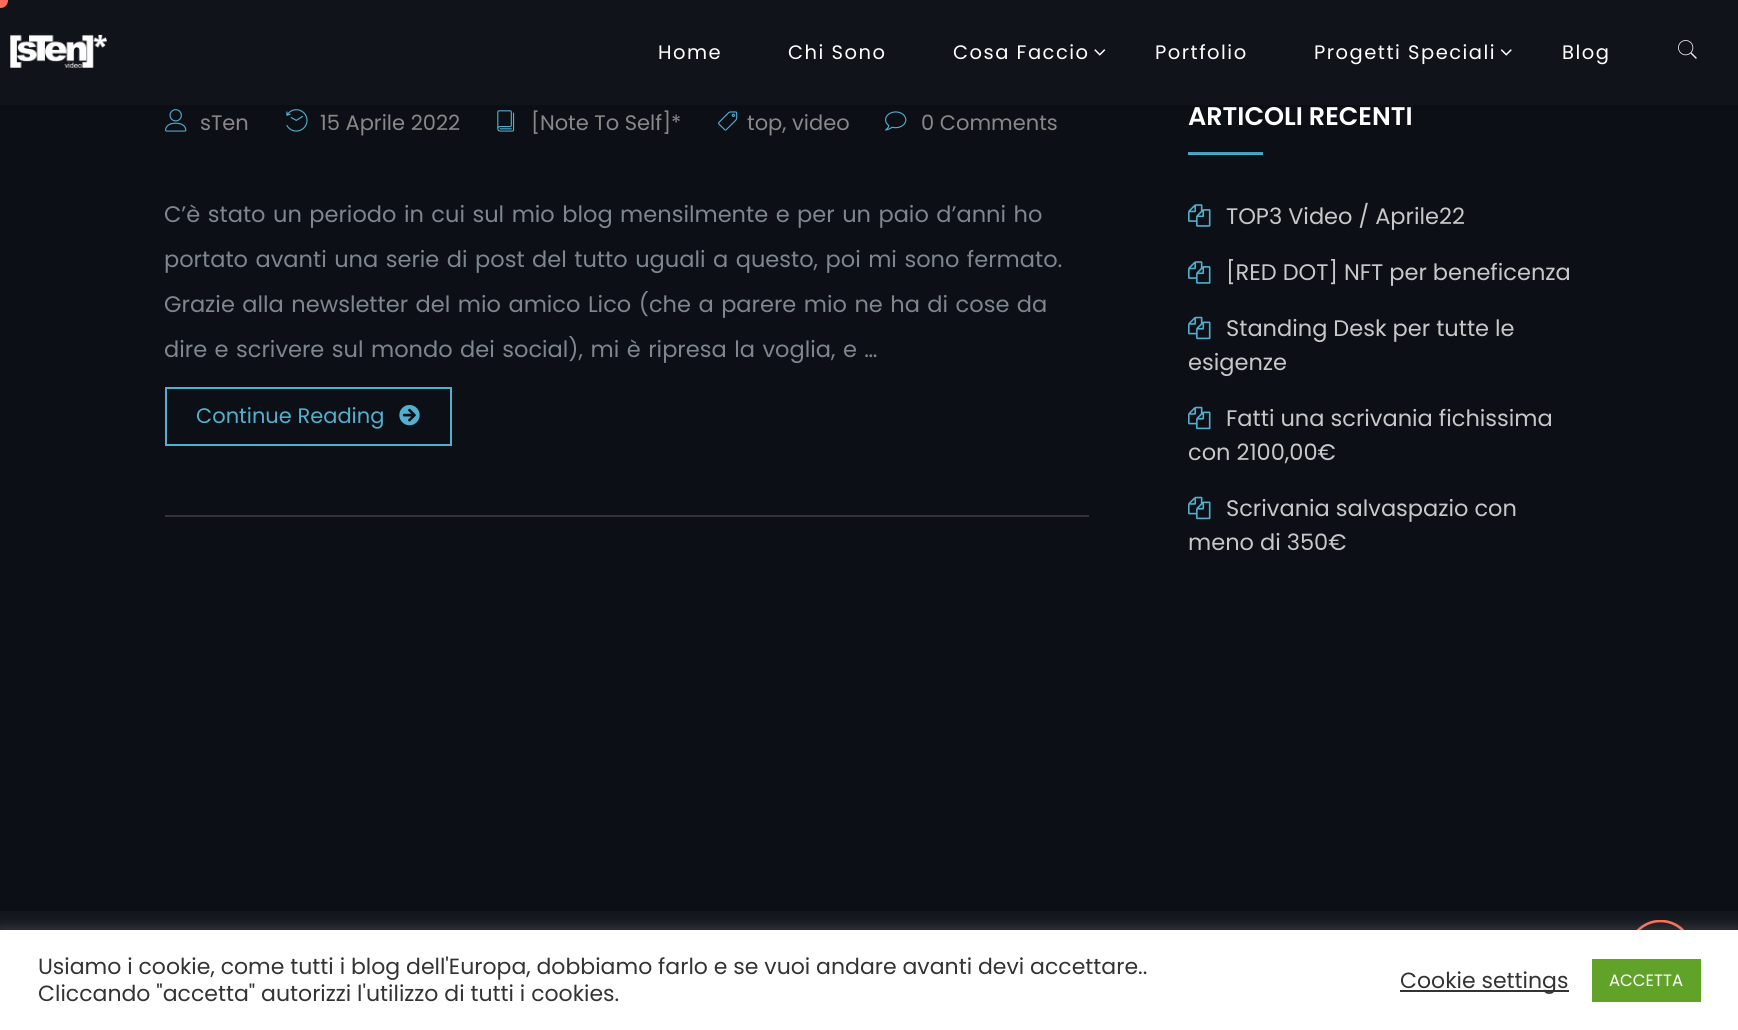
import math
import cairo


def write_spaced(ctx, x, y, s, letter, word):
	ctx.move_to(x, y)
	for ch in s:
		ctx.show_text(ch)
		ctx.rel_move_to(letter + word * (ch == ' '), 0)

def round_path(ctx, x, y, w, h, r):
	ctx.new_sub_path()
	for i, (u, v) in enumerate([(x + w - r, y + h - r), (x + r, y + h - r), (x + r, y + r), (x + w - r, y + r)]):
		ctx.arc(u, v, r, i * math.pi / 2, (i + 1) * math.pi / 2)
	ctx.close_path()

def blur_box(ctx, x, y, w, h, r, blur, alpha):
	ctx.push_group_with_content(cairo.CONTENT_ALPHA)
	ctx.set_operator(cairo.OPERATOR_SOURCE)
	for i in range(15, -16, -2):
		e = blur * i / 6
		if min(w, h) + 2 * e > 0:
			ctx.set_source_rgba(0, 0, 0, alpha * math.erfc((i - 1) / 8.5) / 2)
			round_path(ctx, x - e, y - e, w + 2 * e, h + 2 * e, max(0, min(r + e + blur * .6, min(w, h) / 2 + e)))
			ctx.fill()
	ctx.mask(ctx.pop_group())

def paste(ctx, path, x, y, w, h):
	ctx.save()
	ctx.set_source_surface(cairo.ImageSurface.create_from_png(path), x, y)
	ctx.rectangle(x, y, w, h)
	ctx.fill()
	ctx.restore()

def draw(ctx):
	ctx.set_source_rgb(0.047, 0.059, 0.086)
	ctx.paint()
	paste(ctx, 'media/5.png', 165, 109, 22, 23)
	paste(ctx, 'media/6.png', 286, 109, 22, 23)
	paste(ctx, 'media/7.png', 497, 110, 18, 22)
	paste(ctx, 'media/8.png', 718, 111, 20, 20)
	paste(ctx, 'media/9.png', 885, 111, 22, 20)
	ctx.set_source_rgb(0, 0, 0)
	blur_box(ctx, 0, 0, 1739, 105, 0, 4, 0.2)
	ctx.set_source_rgb(0.067, 0.078, 0.106)
	ctx.rectangle(0, 0, 1738, 105)
	ctx.fill()
	ctx.set_source_rgb(1, 0.427, 0.329)
	ctx.arc(0.5, 0.5, 7.5, 0, 2 * math.pi)
	ctx.fill()
	paste(ctx, 'media/1.png', 10, 34, 97, 34)
	ctx.select_font_face('Poppins')
	ctx.set_font_size(19.5)
	ctx.set_source_rgb(1, 1, 1)
	for x, y, s in [
		(658, 59, 'Home'),
		(788, 59, 'Chi Sono'),
		(953, 59, 'Cosa Faccio'),
	]:
		write_spaced(ctx, x, y, s, 1.5, 0)
	paste(ctx, 'media/2.png', 1094, 49, 12, 7)
	write_spaced(ctx, 1155, 59, 'Portfolio', 1.5, 0)
	write_spaced(ctx, 1314, 59, 'Progetti Speciali', 1.5, 0)
	paste(ctx, 'media/3.png', 1500, 49, 12, 7)
	write_spaced(ctx, 1562, 59, 'Blog', 1.5, 0)
	paste(ctx, 'media/4.png', 1678, 40, 19, 19)
	ctx.set_font_size(21)
	ctx.set_source_rgb(0.533, 0.533, 0.533)
	for x, y, s in [
		(200, 130, 'sTen'),
		(320, 130, '15 Aprile 2022'),
		(531, 130, '[Note To Self]*'),
		(747, 130, 'top, video'),
		(921, 130, '0 Comments'),
	]:
		ctx.move_to(x, y)
		ctx.show_text(s)
	ctx.set_font_size(22.5)
	ctx.set_source_rgb(0.494, 0.525, 0.557)
	for x, y, s in [
		(164, 222, 'C’è stato un periodo in cui sul mio blog mensilmente e per un paio d’anni ho'),
		(164, 267, 'portato avanti una serie di post del tutto uguali a questo, poi mi sono fermato.'),
		(164, 312, 'Grazie alla newsletter del mio amico Lico (che a parere mio ne ha di cose da'),
		(164, 357, 'dire e scrivere sul mondo dei social), mi è ripresa la voglia, e …'),
	]:
		write_spaced(ctx, x, y, s, 0, 1.5)
	ctx.rectangle(166, 388, 285, 57)
	ctx.set_source_rgb(0.322, 0.686, 0.808)
	ctx.stroke()
	ctx.set_font_size(21)
	ctx.move_to(196, 423)
	ctx.show_text('Continue Reading')
	paste(ctx, 'media/10.png', 399, 405, 21, 21)
	ctx.set_source_rgb(0.2, 0.2, 0.2)
	ctx.rectangle(165, 515, 924, 2)
	ctx.fill()
	ctx.select_font_face('Poppins SemiBold')
	ctx.set_font_size(25.5)
	ctx.set_source_rgb(1, 1, 1)
	ctx.move_to(1188, 125)
	ctx.show_text('ARTICOLI RECENTI')
	ctx.set_source_rgb(0.322, 0.686, 0.808)
	ctx.rectangle(1188, 154, 75, 1)
	ctx.fill()
	ctx.set_source_rgb(0.29, 0.62, 0.725)
	ctx.rectangle(1188, 152, 75, 2)
	ctx.fill()
	paste(ctx, 'media/11.png', 1188, 204, 23, 23)
	ctx.select_font_face('Poppins')
	ctx.set_font_size(22.5)
	ctx.set_source_rgb(0.784, 0.784, 0.784)
	ctx.move_to(1226, 224)
	ctx.show_text('TOP3 Video / Aprile22')
	paste(ctx, 'media/11.png', 1188, 261, 23, 23)
	ctx.move_to(1226, 280)
	ctx.show_text('[RED DOT] NFT per beneficenza')
	paste(ctx, 'media/12.png', 1188, 316, 23, 24)
	ctx.move_to(1226, 336)
	ctx.show_text('Standing Desk per tutte le')
	ctx.move_to(1188, 370)
	ctx.show_text('esigenze')
	paste(ctx, 'media/12.png', 1188, 406, 23, 24)
	ctx.move_to(1226, 426)
	ctx.show_text('Fatti una scrivania fichissima')
	ctx.move_to(1188, 460)
	ctx.show_text('con 2100,00€')
	paste(ctx, 'media/12.png', 1188, 496, 23, 24)
	ctx.move_to(1226, 516)
	ctx.show_text('Scrivania salvaspazio con')
	ctx.move_to(1188, 550)
	ctx.show_text('meno di 350€')
	ctx.set_source_rgb(0.075, 0.086, 0.114)
	ctx.rectangle(0, 911, 1738, 19)
	ctx.fill()
	ctx.save()
	ctx.rectangle(1628, 920, 66, 66)
	ctx.clip()
	ctx.new_path()
	ctx.move_to(1660.5, 921)
	ctx.curve_to(1678, 921, 1692, 935, 1692, 952.5)
	ctx.curve_to(1692, 970, 1678, 984, 1660.5, 984)
	ctx.curve_to(1643, 984, 1629, 970, 1629, 952.5)
	ctx.curve_to(1629, 935, 1643, 921, 1660.5, 921)
	ctx.set_source_rgb(1, 0.427, 0.329)
	ctx.set_line_width(2.6)
	ctx.stroke()
	ctx.restore()
	ctx.set_source_rgb(0.675, 0.671, 0.671)
	blur_box(ctx, 0, 929, 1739, 100, 0, 7.5, 0.3)
	ctx.set_source_rgb(1, 1, 1)
	ctx.rectangle(0, 930, 1738, 100)
	ctx.fill()
	ctx.set_font_size(22)
	ctx.set_source_rgb(0.2, 0.2, 0.2)
	ctx.move_to(38, 974)
	ctx.show_text('Usiamo i cookie, come tutti i blog dell\'Europa, dobbiamo farlo e se vuoi andare avanti devi accettare..')
	ctx.move_to(38, 1001)
	ctx.show_text('Cliccando "accetta" autorizzi l\'utilizzo di tutti i cookies.')
	ctx.rectangle(1400, 990, 169, 2)
	ctx.fill()
	ctx.move_to(1400, 988)
	ctx.show_text('Cookie settings')
	ctx.set_source_rgb(0.38, 0.635, 0.161)
	ctx.rectangle(1592, 959, 109, 43)
	ctx.fill()
	ctx.set_font_size(16.5)
	ctx.set_source_rgb(1, 1, 1)
	ctx.move_to(1609, 986)
	ctx.show_text('ACCETTA')


surface = cairo.ImageSurface(cairo.FORMAT_RGB24, 1738, 1030)
ctx = cairo.Context(surface)
options = cairo.FontOptions()
options.set_hint_metrics(cairo.HINT_METRICS_OFF)
options.set_hint_style(cairo.HINT_STYLE_NONE)
ctx.set_font_options(options)
ctx.set_miter_limit(4)
draw(ctx)
surface.write_to_png('image.png')
